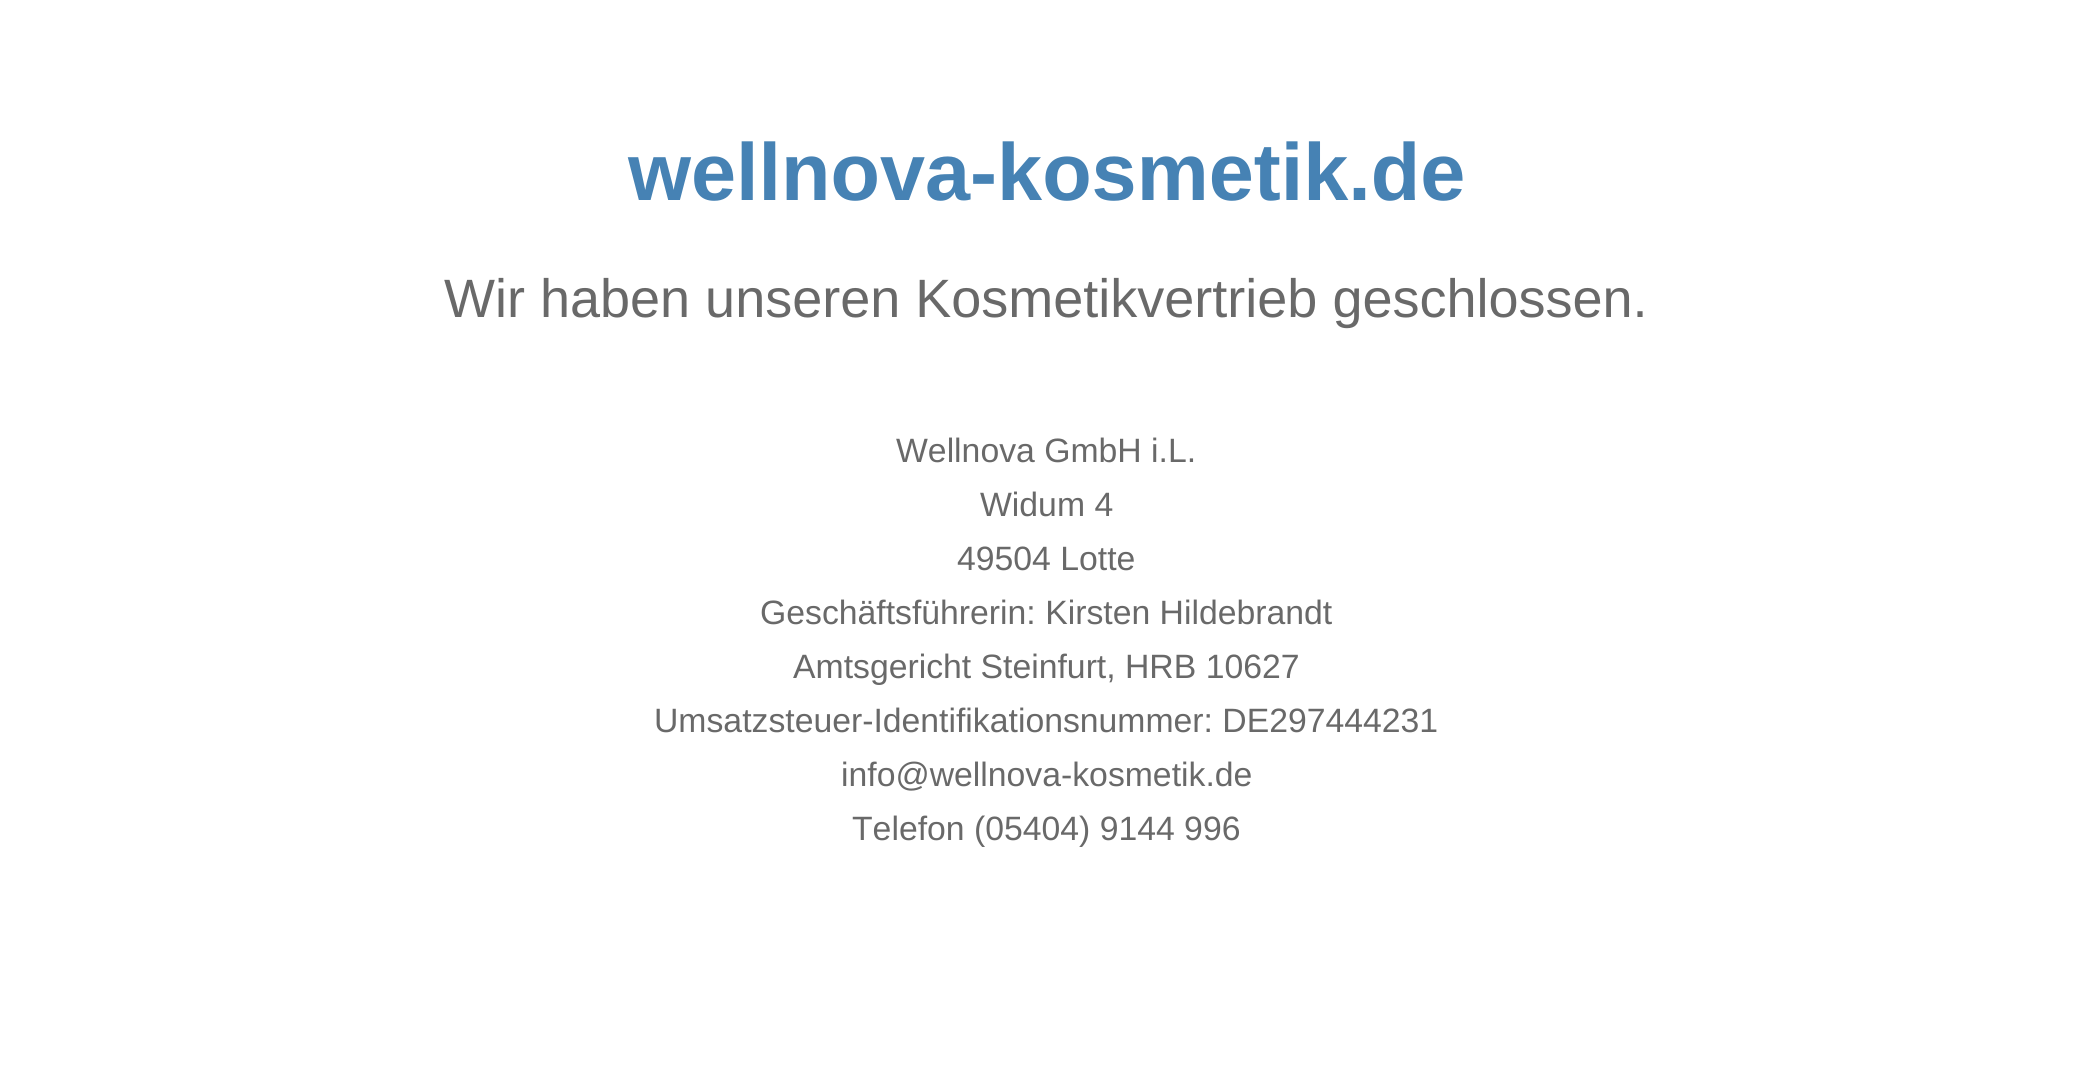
import math
import cairo


def draw(ctx):
	ctx.set_source_rgb(1, 1, 1)
	ctx.paint()
	ctx.select_font_face('Liberation Sans', cairo.FONT_SLANT_NORMAL, cairo.FONT_WEIGHT_BOLD)
	ctx.set_font_size(81)
	ctx.set_source_rgb(0.275, 0.51, 0.706)
	ctx.move_to(628, 200)
	ctx.show_text('wellnova-kosmetik.de')
	ctx.select_font_face('Liberation Sans')
	ctx.set_font_size(54)
	ctx.set_source_rgb(0.412, 0.412, 0.412)
	ctx.move_to(444, 317)
	ctx.show_text('Wir haben unseren Kosmetikvertrieb geschlossen.')
	ctx.set_font_size(33.75)
	for x, y, s in [
		(896, 462, 'Wellnova GmbH i.L.'),
		(980, 516, 'Widum 4'),
		(957, 570, '49504 Lotte'),
		(760, 624, 'Geschäftsführerin: Kirsten Hildebrandt'),
		(793, 678, 'Amtsgericht Steinfurt, HRB 10627'),
		(654, 732, 'Umsatzsteuer-Identifikationsnummer: DE297444231'),
		(841, 786, 'info@wellnova-kosmetik.de'),
		(852, 840, 'Telefon (05404) 9144 996'),
	]:
		ctx.move_to(x, y)
		ctx.show_text(s)


surface = cairo.ImageSurface(cairo.FORMAT_RGB24, 2092, 1087)
ctx = cairo.Context(surface)
options = cairo.FontOptions()
options.set_hint_metrics(cairo.HINT_METRICS_OFF)
options.set_hint_style(cairo.HINT_STYLE_NONE)
ctx.set_font_options(options)
ctx.set_miter_limit(4)
draw(ctx)
surface.write_to_png('image.png')
